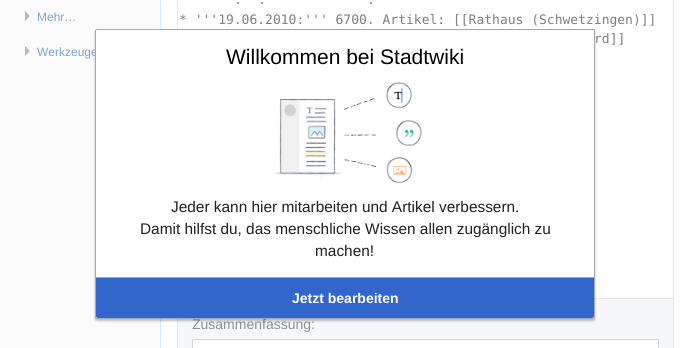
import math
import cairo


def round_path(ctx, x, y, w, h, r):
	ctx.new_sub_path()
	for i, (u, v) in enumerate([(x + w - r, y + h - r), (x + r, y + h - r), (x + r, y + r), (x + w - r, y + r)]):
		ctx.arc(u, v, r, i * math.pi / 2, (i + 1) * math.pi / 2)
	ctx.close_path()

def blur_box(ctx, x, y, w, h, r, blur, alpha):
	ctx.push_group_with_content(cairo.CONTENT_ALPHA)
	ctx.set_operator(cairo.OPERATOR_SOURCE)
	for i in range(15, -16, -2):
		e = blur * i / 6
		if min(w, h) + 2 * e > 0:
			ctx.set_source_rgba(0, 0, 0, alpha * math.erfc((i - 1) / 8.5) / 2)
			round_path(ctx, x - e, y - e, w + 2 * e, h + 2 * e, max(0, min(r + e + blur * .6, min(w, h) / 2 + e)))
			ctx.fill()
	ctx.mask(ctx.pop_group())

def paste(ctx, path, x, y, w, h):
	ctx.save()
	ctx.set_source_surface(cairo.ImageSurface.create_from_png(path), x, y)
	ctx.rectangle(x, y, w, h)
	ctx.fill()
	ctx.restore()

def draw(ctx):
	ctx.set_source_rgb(0.984, 0.984, 0.984)
	ctx.paint()
	ctx.set_source_rgb(0.737, 0.737, 0.737)
	ctx.new_path()
	ctx.move_to(25, 11)
	ctx.line_to(30, 16)
	ctx.line_to(25, 21)
	ctx.close_path()
	ctx.fill()
	ctx.select_font_face('Liberation Sans')
	ctx.set_font_size(12)
	ctx.set_source_rgb(0.514, 0.635, 0.839)
	ctx.move_to(37, 21)
	ctx.show_text('Mehr…')
	ctx.set_source_rgb(0.737, 0.737, 0.737)
	ctx.new_path()
	ctx.move_to(25, 46)
	ctx.line_to(30, 51)
	ctx.line_to(25, 56)
	ctx.close_path()
	ctx.fill()
	ctx.set_source_rgb(0.514, 0.635, 0.839)
	ctx.move_to(37, 56)
	ctx.show_text('Werkzeuge')
	ctx.set_source_rgb(1, 1, 1)
	ctx.rectangle(161, 0, 529, 348)
	ctx.fill()
	ctx.set_source_rgb(0.827, 0.922, 0.988)
	ctx.rectangle(160, 0, 1, 348)
	ctx.fill()
	ctx.rectangle(177.5, -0.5, 496, 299)
	ctx.set_source_rgb(0.894, 0.902, 0.91)
	ctx.set_line_width(1)
	ctx.stroke()
	ctx.select_font_face('DejaVu Sans Mono')
	ctx.set_font_size(13)
	ctx.set_source_rgb(0.502, 0.502, 0.502)
	for x, y, s in [
		(234, 4, '.'),
		(258, 4, '.'),
		(367, 4, '.'),
		(179, 24, '* \'\'\'19.06.2010:\'\'\' 6700. Artikel: [[Rathaus (Schwetzingen)]]'),
		(594, 43, 'rd]]'),
	]:
		ctx.move_to(x, y)
		ctx.show_text(s)
	ctx.set_source_rgb(0.961, 0.965, 0.973)
	ctx.rectangle(178, 299, 495, 49)
	ctx.fill()
	ctx.set_source_rgb(0.894, 0.902, 0.91)
	ctx.rectangle(673, 299, 1, 49)
	ctx.rectangle(177, 319, 1, 29)
	ctx.fill()
	ctx.select_font_face('Liberation Sans')
	ctx.set_font_size(14)
	ctx.set_source_rgb(0.565, 0.565, 0.569)
	ctx.move_to(192, 329)
	ctx.show_text('Zusammenfassung:')
	ctx.set_source_rgb(1, 1, 1)
	round_path(ctx, 192.5, 339.5, 466, 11, 1.5)
	ctx.fill_preserve()
	ctx.set_source_rgb(0.82, 0.831, 0.847)
	ctx.stroke()
	ctx.set_source_rgb(0, 0, 0)
	blur_box(ctx, 95, 31, 500, 290, 2, 1, 0.25)
	ctx.set_source_rgb(1, 1, 1)
	round_path(ctx, 95.5, 29.5, 499, 289, 1.5)
	ctx.fill_preserve()
	ctx.set_source_rgb(0.635, 0.663, 0.694)
	ctx.stroke()
	ctx.set_font_size(21)
	ctx.set_source_rgb(0, 0, 0)
	ctx.move_to(226, 64)
	ctx.show_text('Willkommen bei Stadtwiki')
	paste(ctx, 'media/1.png', 275, 82, 147, 101)
	ctx.set_font_size(15.4)
	ctx.set_source_rgb(0.125, 0.129, 0.133)
	for x, y, s in [
		(171, 212, 'Jeder kann hier mitarbeiten und Artikel verbessern.'),
		(140, 234, 'Damit hilfst du, das menschliche Wissen allen zugänglich zu'),
		(315, 256, 'machen!'),
	]:
		ctx.move_to(x, y)
		ctx.show_text(s)
	ctx.save()
	ctx.rectangle(96, 30, 498, 288)
	ctx.clip()
	ctx.rectangle(95.5, 277.5, 499, 41)
	ctx.set_source_rgb(0.635, 0.663, 0.694)
	ctx.stroke()
	ctx.restore()
	ctx.set_source_rgb(0.2, 0.4, 0.8)
	ctx.new_path()
	ctx.move_to(96, 278)
	ctx.line_to(594, 278)
	ctx.line_to(594, 316)
	ctx.curve_to(594, 317, 593, 318, 592, 318)
	ctx.line_to(98, 318)
	ctx.curve_to(97, 318, 96, 317, 96, 316)
	ctx.close_path()
	ctx.fill()
	ctx.select_font_face('Liberation Sans', cairo.FONT_SLANT_NORMAL, cairo.FONT_WEIGHT_BOLD)
	ctx.set_font_size(14)
	ctx.set_source_rgb(1, 1, 1)
	ctx.move_to(292, 303)
	ctx.show_text('Jetzt bearbeiten')


surface = cairo.ImageSurface(cairo.FORMAT_RGB24, 690, 348)
ctx = cairo.Context(surface)
options = cairo.FontOptions()
options.set_hint_metrics(cairo.HINT_METRICS_OFF)
options.set_hint_style(cairo.HINT_STYLE_NONE)
ctx.set_font_options(options)
ctx.set_miter_limit(4)
draw(ctx)
surface.write_to_png('image.png')
